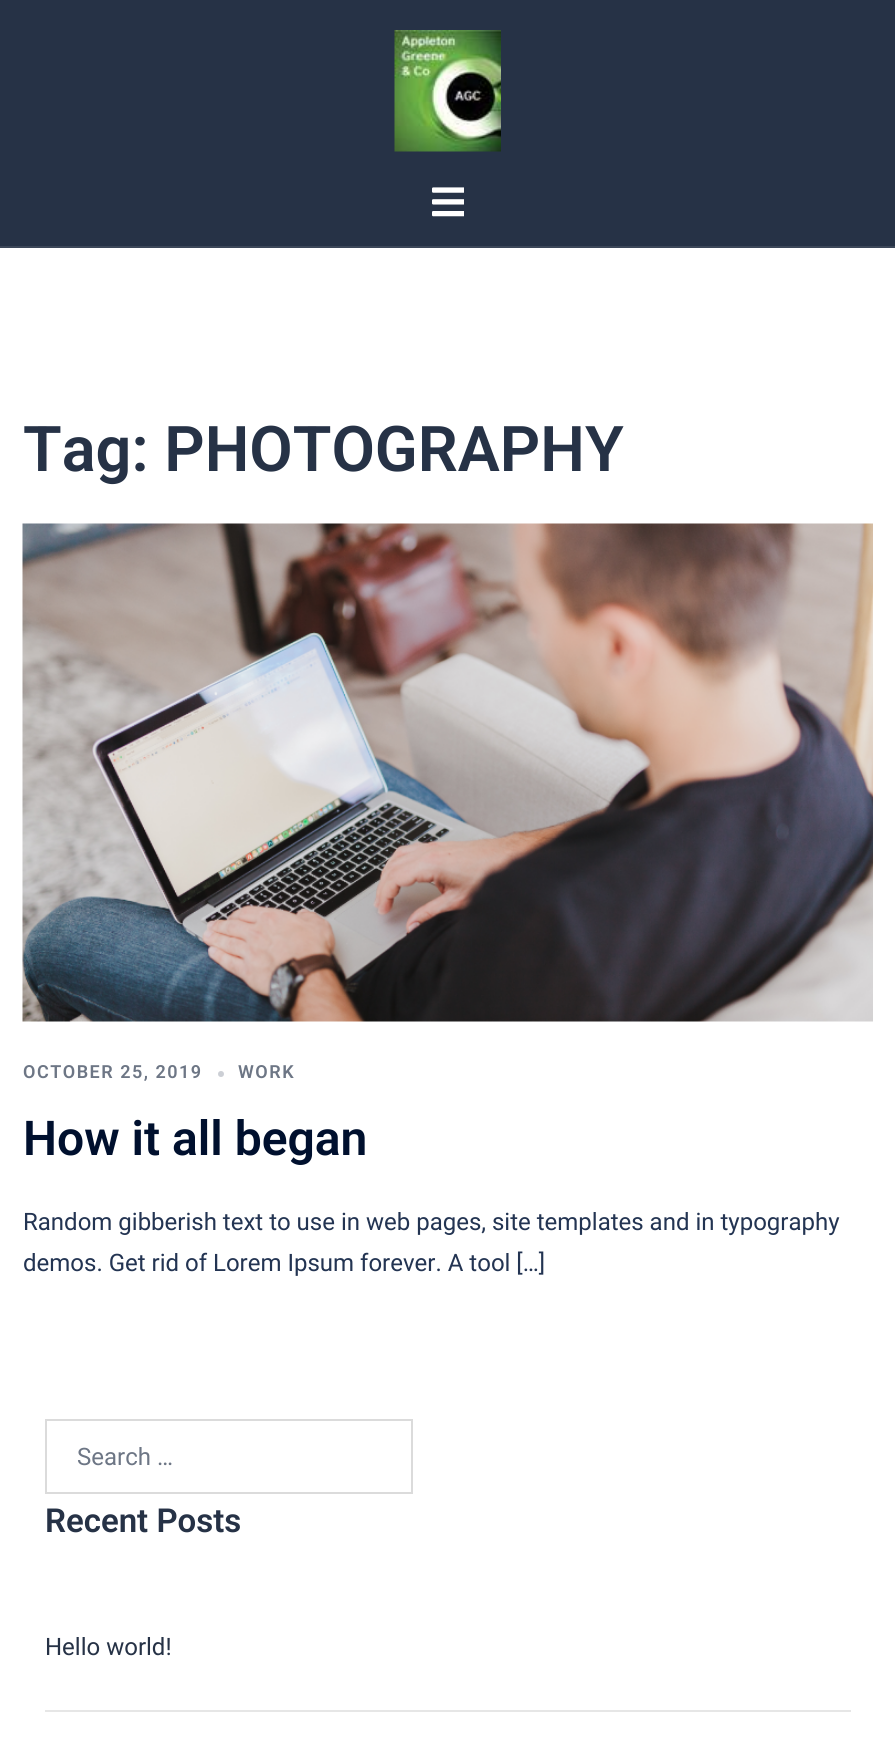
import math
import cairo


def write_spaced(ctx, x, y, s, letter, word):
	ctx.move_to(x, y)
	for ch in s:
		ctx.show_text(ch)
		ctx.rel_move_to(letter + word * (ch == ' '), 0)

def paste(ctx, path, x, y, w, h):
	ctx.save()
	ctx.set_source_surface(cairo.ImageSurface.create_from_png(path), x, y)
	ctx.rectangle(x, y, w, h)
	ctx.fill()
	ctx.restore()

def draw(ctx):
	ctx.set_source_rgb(1, 1, 1)
	ctx.paint()
	ctx.set_source_rgb(0.149, 0.196, 0.275)
	ctx.rectangle(0, 0, 895, 246)
	ctx.fill()
	ctx.set_source_rgb(0.235, 0.278, 0.349)
	ctx.rectangle(0, 246, 895, 2)
	ctx.fill()
	paste(ctx, 'media/1.png', 394, 30, 107, 122)
	paste(ctx, 'media/2.png', 432, 187, 32, 30)
	ctx.select_font_face('Roboto SemiBold')
	ctx.set_font_size(63)
	ctx.set_source_rgb(0.149, 0.196, 0.275)
	ctx.move_to(23, 471)
	ctx.show_text('Tag: PHOTOGRAPHY')
	paste(ctx, 'media/3.png', 22, 523, 851, 499)
	ctx.set_font_size(18)
	ctx.set_source_rgb(0.427, 0.463, 0.522)
	write_spaced(ctx, 23, 1078, 'OCTOBER 25, 2019', 1.5, 0)
	ctx.set_source_rgb(0.8, 0.812, 0.835)
	ctx.new_path()
	ctx.arc(221, 1074, 3, 0, 2 * math.pi)
	ctx.fill()
	ctx.set_source_rgb(0.427, 0.463, 0.522)
	write_spaced(ctx, 238, 1078, 'WORK', 1.5, 0)
	ctx.set_font_size(48)
	ctx.set_source_rgb(0, 0.063, 0.18)
	ctx.move_to(23, 1155)
	ctx.show_text('How it all began')
	ctx.select_font_face('Roboto')
	ctx.set_font_size(24)
	ctx.set_source_rgb(0.137, 0.204, 0.322)
	ctx.move_to(23, 1230)
	ctx.show_text('Random gibberish text to use in web pages, site templates and in typography')
	ctx.move_to(23, 1271)
	ctx.show_text('demos. Get rid of Lorem Ipsum forever. A tool […]')
	ctx.rectangle(46, 1420, 366, 73)
	ctx.set_source_rgb(0.859, 0.859, 0.859)
	ctx.stroke()
	ctx.set_source_rgb(0.427, 0.463, 0.522)
	ctx.move_to(77, 1465)
	ctx.show_text('Search …')
	ctx.select_font_face('Roboto SemiBold')
	ctx.set_font_size(33)
	ctx.set_source_rgb(0.149, 0.196, 0.275)
	ctx.move_to(45, 1532)
	ctx.show_text('Recent Posts')
	ctx.set_source_rgb(0.902, 0.902, 0.902)
	ctx.rectangle(45, 1710, 806, 2)
	ctx.fill()
	ctx.select_font_face('Roboto')
	ctx.set_font_size(24)
	ctx.set_source_rgb(0.149, 0.196, 0.275)
	ctx.move_to(45, 1655)
	ctx.show_text('Hello world!')


surface = cairo.ImageSurface(cairo.FORMAT_RGB24, 895, 1738)
ctx = cairo.Context(surface)
options = cairo.FontOptions()
options.set_hint_metrics(cairo.HINT_METRICS_OFF)
options.set_hint_style(cairo.HINT_STYLE_NONE)
ctx.set_font_options(options)
ctx.set_miter_limit(4)
draw(ctx)
surface.write_to_png('image.png')
